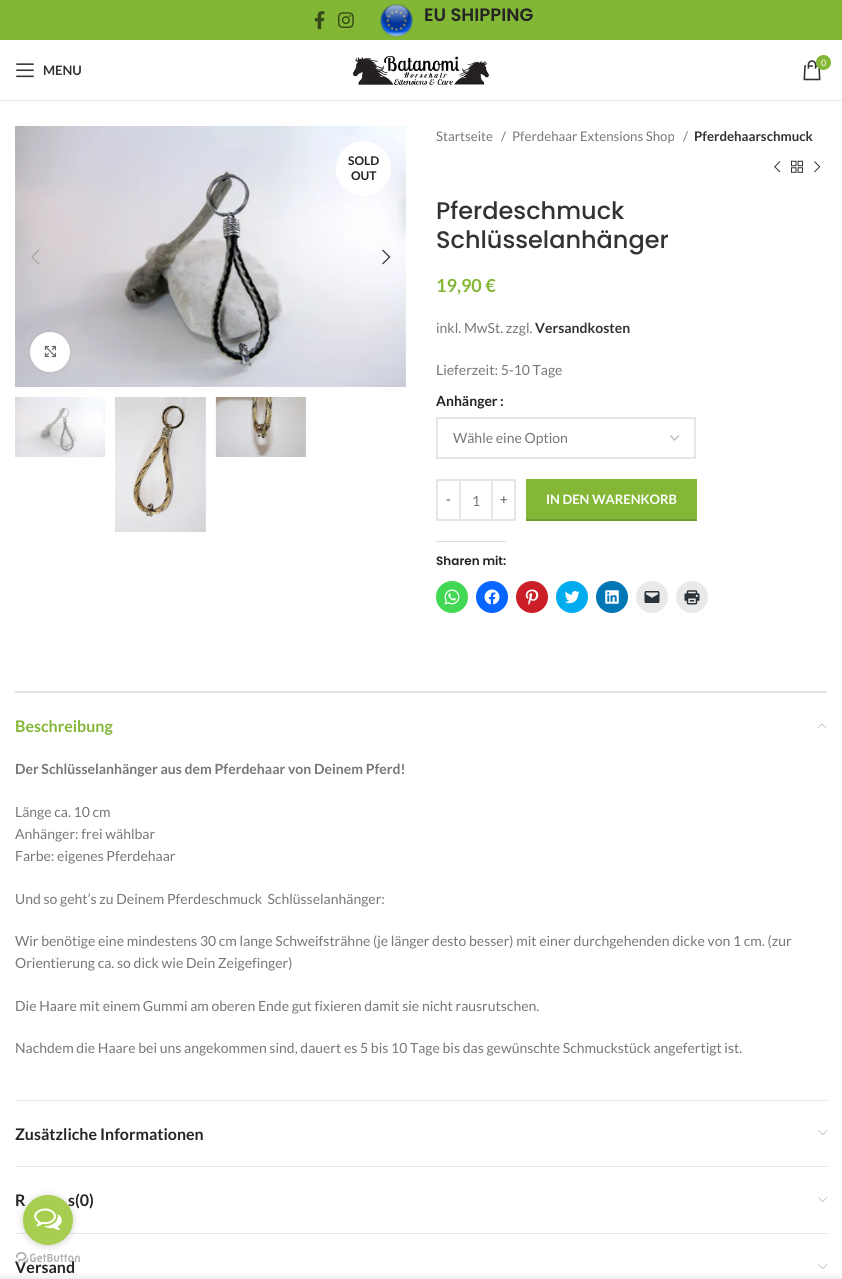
import math
import cairo


def round_path(ctx, x, y, w, h, r):
	ctx.new_sub_path()
	for i, (u, v) in enumerate([(x + w - r, y + h - r), (x + r, y + h - r), (x + r, y + r), (x + w - r, y + r)]):
		ctx.arc(u, v, r, i * math.pi / 2, (i + 1) * math.pi / 2)
	ctx.close_path()

def blur_box(ctx, x, y, w, h, r, blur, alpha):
	ctx.push_group_with_content(cairo.CONTENT_ALPHA)
	ctx.set_operator(cairo.OPERATOR_SOURCE)
	for i in range(15, -16, -2):
		e = blur * i / 6
		if min(w, h) + 2 * e > 0:
			ctx.set_source_rgba(0, 0, 0, alpha * math.erfc((i - 1) / 8.5) / 2)
			round_path(ctx, x - e, y - e, w + 2 * e, h + 2 * e, max(0, min(r + e + blur * .6, min(w, h) / 2 + e)))
			ctx.fill()
	ctx.mask(ctx.pop_group())

def paste(ctx, path, x, y, w, h):
	ctx.save()
	ctx.set_source_surface(cairo.ImageSurface.create_from_png(path), x, y)
	ctx.rectangle(x, y, w, h)
	ctx.fill()
	ctx.restore()

def draw(ctx):
	ctx.set_source_rgb(1, 1, 1)
	ctx.paint()
	ctx.set_source_rgb(0.51, 0.718, 0.208)
	ctx.rectangle(0, 0, 842, 40)
	ctx.fill()
	paste(ctx, 'media/1.png', 314, 11, 11, 19)
	paste(ctx, 'media/2.png', 338, 12, 16, 16)
	paste(ctx, 'media/3.png', 380, 4, 33, 33)
	ctx.select_font_face('Poppins SemiBold')
	ctx.set_font_size(18)
	ctx.set_source_rgb(0.141, 0.141, 0.141)
	ctx.move_to(424, 21)
	ctx.show_text('EU SHIPPING')
	ctx.set_source_rgb(0.902, 0.902, 0.902)
	ctx.rectangle(0, 100, 842, 1)
	ctx.fill()
	paste(ctx, 'media/4.png', 351, 55, 139, 31)
	paste(ctx, 'media/5.png', 803, 60, 18, 21)
	ctx.set_source_rgb(0.514, 0.718, 0.208)
	ctx.arc(823.5, 62.5, 7.5, 0, 2 * math.pi)
	ctx.fill()
	ctx.select_font_face('Lato')
	ctx.set_font_size(9)
	ctx.set_source_rgb(1, 1, 1)
	ctx.move_to(821, 66)
	ctx.show_text('0')
	paste(ctx, 'media/6.png', 16, 63, 18, 15)
	ctx.select_font_face('Lato', cairo.FONT_SLANT_NORMAL, cairo.FONT_WEIGHT_BOLD)
	ctx.set_font_size(13)
	ctx.set_source_rgb(0.2, 0.2, 0.2)
	ctx.move_to(43, 75)
	ctx.show_text('MENU')
	paste(ctx, 'media/7.png', 15, 126, 391, 261)
	ctx.set_source_rgb(1, 1, 1)
	ctx.arc(363.5, 168.5, 27.5, 0, 2 * math.pi)
	ctx.fill()
	ctx.set_font_size(12)
	ctx.set_source_rgb(0.141, 0.141, 0.141)
	ctx.move_to(348, 165)
	ctx.show_text('SOLD')
	ctx.move_to(351, 180)
	ctx.show_text('OUT')
	paste(ctx, 'media/8.png', 31, 249, 9, 16)
	paste(ctx, 'media/9.png', 382, 249, 9, 16)
	ctx.set_source_rgb(0, 0, 0)
	blur_box(ctx, 30, 332, 40, 40, 20, 2.5, 0.08)
	ctx.set_source_rgb(1, 1, 1)
	ctx.arc(50, 352, 20, 0, 2 * math.pi)
	ctx.fill()
	paste(ctx, 'media/10.png', 44, 345, 12, 13)
	paste(ctx, 'media/11.png', 15, 397, 90, 61)
	paste(ctx, 'media/12.png', 115, 397, 91, 135)
	paste(ctx, 'media/13.png', 215, 397, 91, 60)
	ctx.select_font_face('Lato')
	ctx.set_font_size(13.25)
	ctx.set_source_rgb(0.467, 0.467, 0.467)
	for x, y, s in [
		(436, 141, 'Startseite'),
		(501, 141, '/'),
		(512, 141, 'Pferdehaar Extensions Shop'),
		(683, 141, '/'),
	]:
		ctx.move_to(x, y)
		ctx.show_text(s)
	ctx.select_font_face('Lato', cairo.FONT_SLANT_NORMAL, cairo.FONT_WEIGHT_BOLD)
	ctx.set_source_rgb(0.2, 0.2, 0.2)
	ctx.move_to(694, 141)
	ctx.show_text('Pferdehaarschmuck')
	paste(ctx, 'media/14.png', 774, 161, 7, 12)
	paste(ctx, 'media/15.png', 791, 160, 12, 13)
	paste(ctx, 'media/16.png', 814, 161, 7, 12)
	ctx.select_font_face('Poppins Medium')
	ctx.set_font_size(24)
	ctx.move_to(436, 219)
	ctx.show_text('Pferdeschmuck')
	ctx.move_to(436, 248)
	ctx.show_text('Schlüsselanhänger')
	ctx.select_font_face('Lato', cairo.FONT_SLANT_NORMAL, cairo.FONT_WEIGHT_BOLD)
	ctx.set_font_size(18)
	ctx.set_source_rgb(0.514, 0.718, 0.208)
	ctx.move_to(436, 292)
	ctx.show_text('19,90 €')
	ctx.select_font_face('Lato')
	ctx.set_font_size(14)
	ctx.set_source_rgb(0.467, 0.467, 0.467)
	ctx.move_to(436, 333)
	ctx.show_text('inkl. MwSt. zzgl.')
	ctx.select_font_face('Lato', cairo.FONT_SLANT_NORMAL, cairo.FONT_WEIGHT_BOLD)
	ctx.set_source_rgb(0.2, 0.2, 0.2)
	ctx.move_to(535, 333)
	ctx.show_text('Versandkosten')
	ctx.select_font_face('Lato')
	ctx.set_source_rgb(0.467, 0.467, 0.467)
	ctx.move_to(436, 375)
	ctx.show_text('Lieferzeit: 5-10 Tage')
	ctx.select_font_face('Lato', cairo.FONT_SLANT_NORMAL, cairo.FONT_WEIGHT_BOLD)
	ctx.set_source_rgb(0.141, 0.141, 0.141)
	ctx.move_to(436, 406)
	ctx.show_text('Anhänger')
	ctx.move_to(500, 406)
	ctx.show_text(':')
	ctx.new_path()
	ctx.move_to(670.5, 435.5)
	ctx.line_to(674.5, 440)
	ctx.line_to(679, 435.5)
	ctx.set_source_rgb(0.733, 0.733, 0.733)
	ctx.set_line_width(1.4)
	ctx.stroke()
	ctx.rectangle(437, 418, 258, 40)
	ctx.set_source_rgb(0.902, 0.902, 0.902)
	ctx.set_line_width(2)
	ctx.stroke()
	ctx.select_font_face('Lato')
	ctx.set_source_rgb(0.467, 0.467, 0.467)
	ctx.move_to(453, 443)
	ctx.show_text('Wähle eine Option')
	ctx.rectangle(437, 480, 23, 40)
	ctx.set_source_rgb(0.902, 0.902, 0.902)
	ctx.stroke()
	ctx.select_font_face('Lato', cairo.FONT_SLANT_NORMAL, cairo.FONT_WEIGHT_BOLD)
	ctx.set_font_size(13)
	ctx.set_source_rgb(0.467, 0.467, 0.467)
	ctx.move_to(446, 504)
	ctx.show_text('-')
	ctx.set_source_rgb(0.902, 0.902, 0.902)
	ctx.rectangle(461, 479, 30, 2)
	ctx.fill()
	ctx.rectangle(461, 519, 30, 2)
	ctx.fill()
	ctx.select_font_face('Lato')
	ctx.set_font_size(14)
	ctx.set_source_rgb(0.467, 0.467, 0.467)
	ctx.move_to(472, 506)
	ctx.show_text('1')
	ctx.rectangle(492, 480, 23, 40)
	ctx.set_source_rgb(0.902, 0.902, 0.902)
	ctx.stroke()
	ctx.select_font_face('Lato', cairo.FONT_SLANT_NORMAL, cairo.FONT_WEIGHT_BOLD)
	ctx.set_font_size(13)
	ctx.set_source_rgb(0.467, 0.467, 0.467)
	ctx.move_to(500, 504)
	ctx.show_text('+')
	ctx.set_source_rgb(0.514, 0.718, 0.208)
	ctx.rectangle(526, 479, 171, 40)
	ctx.fill()
	ctx.set_source_rgb(0.435, 0.612, 0.176)
	ctx.rectangle(526, 519, 171, 2)
	ctx.fill()
	ctx.set_source_rgb(1, 1, 1)
	ctx.move_to(546, 504)
	ctx.show_text('IN DEN WARENKORB')
	ctx.set_source_rgb(0.863, 0.863, 0.871)
	ctx.rectangle(436, 541, 70, 1)
	ctx.fill()
	ctx.select_font_face('Poppins SemiBold')
	ctx.set_font_size(12)
	ctx.set_source_rgb(0.141, 0.141, 0.141)
	ctx.move_to(436, 565)
	ctx.show_text('Sharen mit:')
	ctx.set_source_rgb(0.263, 0.847, 0.329)
	ctx.new_path()
	ctx.arc(452, 597, 16, 0, 2 * math.pi)
	ctx.fill()
	paste(ctx, 'media/17.png', 444, 589, 16, 16)
	ctx.set_source_rgb(0.031, 0.4, 1)
	ctx.arc(492, 597, 16, 0, 2 * math.pi)
	ctx.fill()
	paste(ctx, 'media/18.png', 484, 589, 16, 16)
	ctx.set_source_rgb(0.792, 0.122, 0.153)
	ctx.arc(532, 597, 16, 0, 2 * math.pi)
	ctx.fill()
	paste(ctx, 'media/19.png', 525, 589, 14, 16)
	ctx.set_source_rgb(0, 0.675, 0.933)
	ctx.arc(572, 597, 16, 0, 2 * math.pi)
	ctx.fill()
	paste(ctx, 'media/20.png', 564, 591, 16, 13)
	ctx.set_source_rgb(0, 0.467, 0.71)
	ctx.arc(612, 597, 16, 0, 2 * math.pi)
	ctx.fill()
	paste(ctx, 'media/21.png', 605, 590, 14, 14)
	ctx.set_source_rgb(0.914, 0.914, 0.914)
	ctx.arc(652, 597, 16, 0, 2 * math.pi)
	ctx.fill()
	paste(ctx, 'media/22.png', 644, 591, 16, 12)
	ctx.arc(692, 597, 16, 0, 2 * math.pi)
	ctx.fill()
	paste(ctx, 'media/23.png', 684, 590, 16, 15)
	ctx.set_source_rgb(0.894, 0.894, 0.894)
	ctx.rectangle(15, 691, 812, 2)
	ctx.fill()
	ctx.rectangle(15, 1100, 812, 1)
	ctx.fill()
	ctx.select_font_face('Lato', cairo.FONT_SLANT_NORMAL, cairo.FONT_WEIGHT_BOLD)
	ctx.set_font_size(16)
	ctx.set_source_rgb(0.514, 0.718, 0.208)
	ctx.move_to(15, 732)
	ctx.show_text('Beschreibung')
	paste(ctx, 'media/24.png', 817, 723, 10, 6)
	ctx.set_font_size(14)
	ctx.set_source_rgb(0.467, 0.467, 0.467)
	ctx.move_to(15, 774)
	ctx.show_text('Der Schlüsselanhänger aus dem Pferdehaar von Deinem Pferd!')
	ctx.select_font_face('Lato')
	for x, y, s in [
		(15, 817, 'Länge ca. 10 cm'),
		(15, 839, 'Anhänger: frei wählbar'),
		(15, 861, 'Farbe: eigenes Pferdehaar'),
		(15, 904, 'Und so geht’s zu Deinem Pferdeschmuck  Schlüsselanhänger:'),
		(15, 946, 'Wir benötige eine mindestens 30 cm lange Schweifsträhne (je länger desto besser) mit einer durchgehenden dicke von 1 cm. (zur'),
		(15, 968, 'Orientierung ca. so dick wie Dein Zeigefinger)'),
		(15, 1011, 'Die Haare mit einem Gummi am oberen Ende gut fixieren damit sie nicht rausrutschen.'),
		(15, 1053, 'Nachdem die Haare bei uns angekommen sind, dauert es 5 bis 10 Tage bis das gewünschte Schmuckstück angefertigt ist.'),
	]:
		ctx.move_to(x, y)
		ctx.show_text(s)
	ctx.set_source_rgb(0.894, 0.894, 0.894)
	ctx.rectangle(15, 1166, 812, 1)
	ctx.fill()
	ctx.select_font_face('Lato', cairo.FONT_SLANT_NORMAL, cairo.FONT_WEIGHT_BOLD)
	ctx.set_font_size(16)
	ctx.set_source_rgb(0.141, 0.141, 0.141)
	ctx.move_to(15, 1140)
	ctx.show_text('Zusätzliche Informationen')
	paste(ctx, 'media/25.png', 818, 1130, 10, 5)
	ctx.set_source_rgb(0.894, 0.894, 0.894)
	ctx.rectangle(15, 1233, 812, 1)
	ctx.fill()
	ctx.set_source_rgb(0.141, 0.141, 0.141)
	ctx.move_to(15, 1206)
	ctx.show_text('R')
	ctx.move_to(68, 1206)
	ctx.show_text('s(0)')
	paste(ctx, 'media/25.png', 818, 1197, 10, 5)
	ctx.move_to(15, 1273)
	ctx.show_text('Versand')
	paste(ctx, 'media/25.png', 818, 1264, 10, 5)
	paste(ctx, 'media/27.png', 16, 1252, 64, 11)
	ctx.set_source_rgb(0.533, 0.533, 0.533)
	blur_box(ctx, 23, 1196, 50, 50, 25, 3.5, 0.4)
	ctx.set_source_rgb(0.659, 0.808, 0.314)
	ctx.arc(48, 1220, 25, 0, 2 * math.pi)
	ctx.fill()
	paste(ctx, 'media/26.png', 34, 1208, 28, 23)
	ctx.set_source_rgb(0, 0, 0)
	blur_box(ctx, 0, 1279, 842, 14, 0, 4.5, 0.14)


surface = cairo.ImageSurface(cairo.FORMAT_RGB24, 842, 1279)
ctx = cairo.Context(surface)
options = cairo.FontOptions()
options.set_hint_metrics(cairo.HINT_METRICS_OFF)
options.set_hint_style(cairo.HINT_STYLE_NONE)
ctx.set_font_options(options)
ctx.set_miter_limit(4)
draw(ctx)
surface.write_to_png('image.png')
